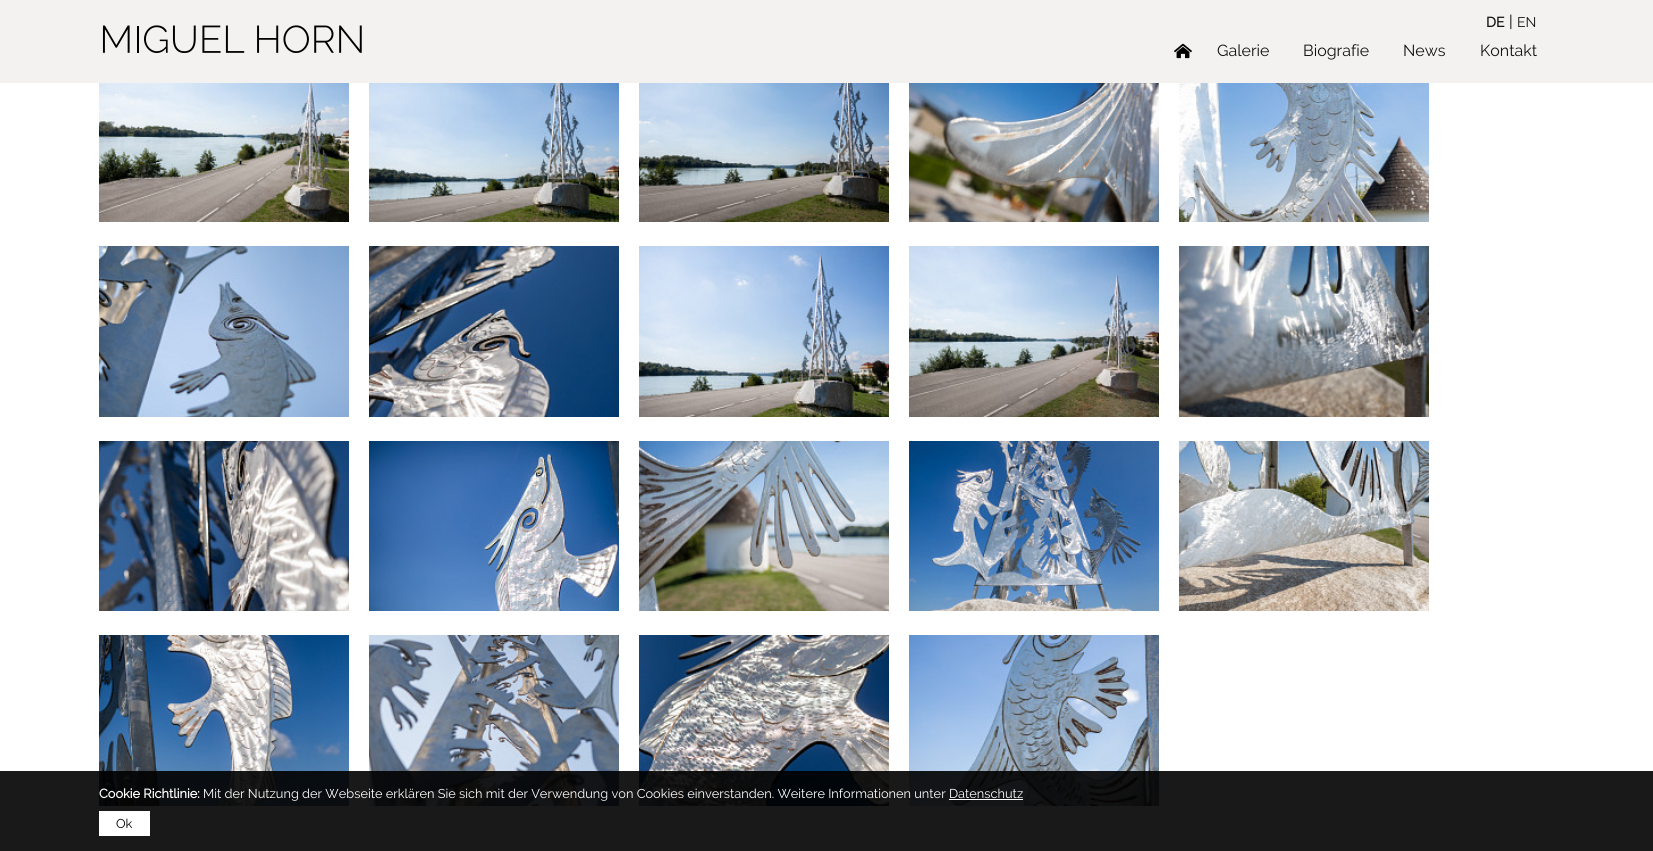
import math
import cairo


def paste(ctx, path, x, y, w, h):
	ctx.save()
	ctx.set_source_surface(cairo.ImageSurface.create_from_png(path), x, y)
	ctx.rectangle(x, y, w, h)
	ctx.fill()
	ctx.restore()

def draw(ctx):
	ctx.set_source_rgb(1, 1, 1)
	ctx.paint()
	ctx.set_source_rgb(0.953, 0.949, 0.941)
	ctx.rectangle(0, 0, 1653, 83)
	ctx.fill()
	paste(ctx, 'media/1.png', 102, 25, 260, 28)
	ctx.select_font_face('Raleway', cairo.FONT_SLANT_NORMAL, cairo.FONT_WEIGHT_BOLD)
	ctx.set_font_size(14)
	ctx.set_source_rgb(0.071, 0.071, 0.071)
	ctx.move_to(1486, 27)
	ctx.show_text('DE')
	ctx.select_font_face('Raleway')
	ctx.set_font_size(16)
	ctx.set_source_rgb(0, 0, 0)
	ctx.move_to(1509, 27)
	ctx.show_text('|')
	ctx.set_font_size(14)
	ctx.set_source_rgb(0.071, 0.071, 0.071)
	ctx.move_to(1517, 27)
	ctx.show_text('EN')
	paste(ctx, 'media/2.png', 1174, 43, 18, 16)
	ctx.set_font_size(16)
	for x, y, s in [
		(1217, 56, 'Galerie'),
		(1303, 56, 'Biografie'),
		(1403, 56, 'News'),
		(1480, 56, 'Kontakt'),
	]:
		ctx.move_to(x, y)
		ctx.show_text(s)
	paste(ctx, 'media/3.png', 99, 83, 250, 139)
	paste(ctx, 'media/4.png', 369, 83, 250, 139)
	paste(ctx, 'media/5.png', 639, 83, 250, 139)
	paste(ctx, 'media/6.png', 909, 83, 250, 139)
	paste(ctx, 'media/7.png', 1179, 83, 250, 139)
	paste(ctx, 'media/8.png', 99, 246, 250, 171)
	paste(ctx, 'media/9.png', 369, 246, 250, 171)
	paste(ctx, 'media/10.png', 639, 246, 250, 171)
	paste(ctx, 'media/11.png', 909, 246, 250, 171)
	paste(ctx, 'media/12.png', 1179, 246, 250, 171)
	paste(ctx, 'media/13.png', 99, 441, 250, 170)
	paste(ctx, 'media/14.png', 369, 441, 250, 170)
	paste(ctx, 'media/15.png', 639, 441, 250, 170)
	paste(ctx, 'media/16.png', 909, 441, 250, 170)
	paste(ctx, 'media/17.png', 1179, 441, 250, 170)
	paste(ctx, 'media/18.png', 99, 635, 250, 171)
	paste(ctx, 'media/19.png', 369, 635, 250, 171)
	paste(ctx, 'media/20.png', 639, 635, 250, 171)
	paste(ctx, 'media/21.png', 909, 635, 250, 171)
	ctx.set_source_rgba(0, 0, 0, 0.9)
	ctx.rectangle(0, 771, 1653, 80)
	ctx.fill()
	ctx.select_font_face('Raleway', cairo.FONT_SLANT_NORMAL, cairo.FONT_WEIGHT_BOLD)
	ctx.set_font_size(12.8)
	ctx.set_source_rgb(1, 1, 1)
	ctx.move_to(99, 798)
	ctx.show_text('Cookie Richtlinie:')
	ctx.select_font_face('Raleway')
	ctx.move_to(203, 798)
	ctx.show_text('Mit der Nutzung der Webseite erklären Sie sich mit der Verwendung von Cookies einverstanden. Weitere Informationen unter Datenschutz')
	ctx.rectangle(949, 799, 74, 1)
	ctx.fill()
	ctx.rectangle(99, 811, 51, 25)
	ctx.fill()
	ctx.set_source_rgb(0, 0, 0)
	ctx.move_to(116, 828)
	ctx.show_text('Ok')


surface = cairo.ImageSurface(cairo.FORMAT_RGB24, 1653, 851)
ctx = cairo.Context(surface)
options = cairo.FontOptions()
options.set_hint_metrics(cairo.HINT_METRICS_OFF)
options.set_hint_style(cairo.HINT_STYLE_NONE)
ctx.set_font_options(options)
ctx.set_miter_limit(4)
draw(ctx)
surface.write_to_png('image.png')
